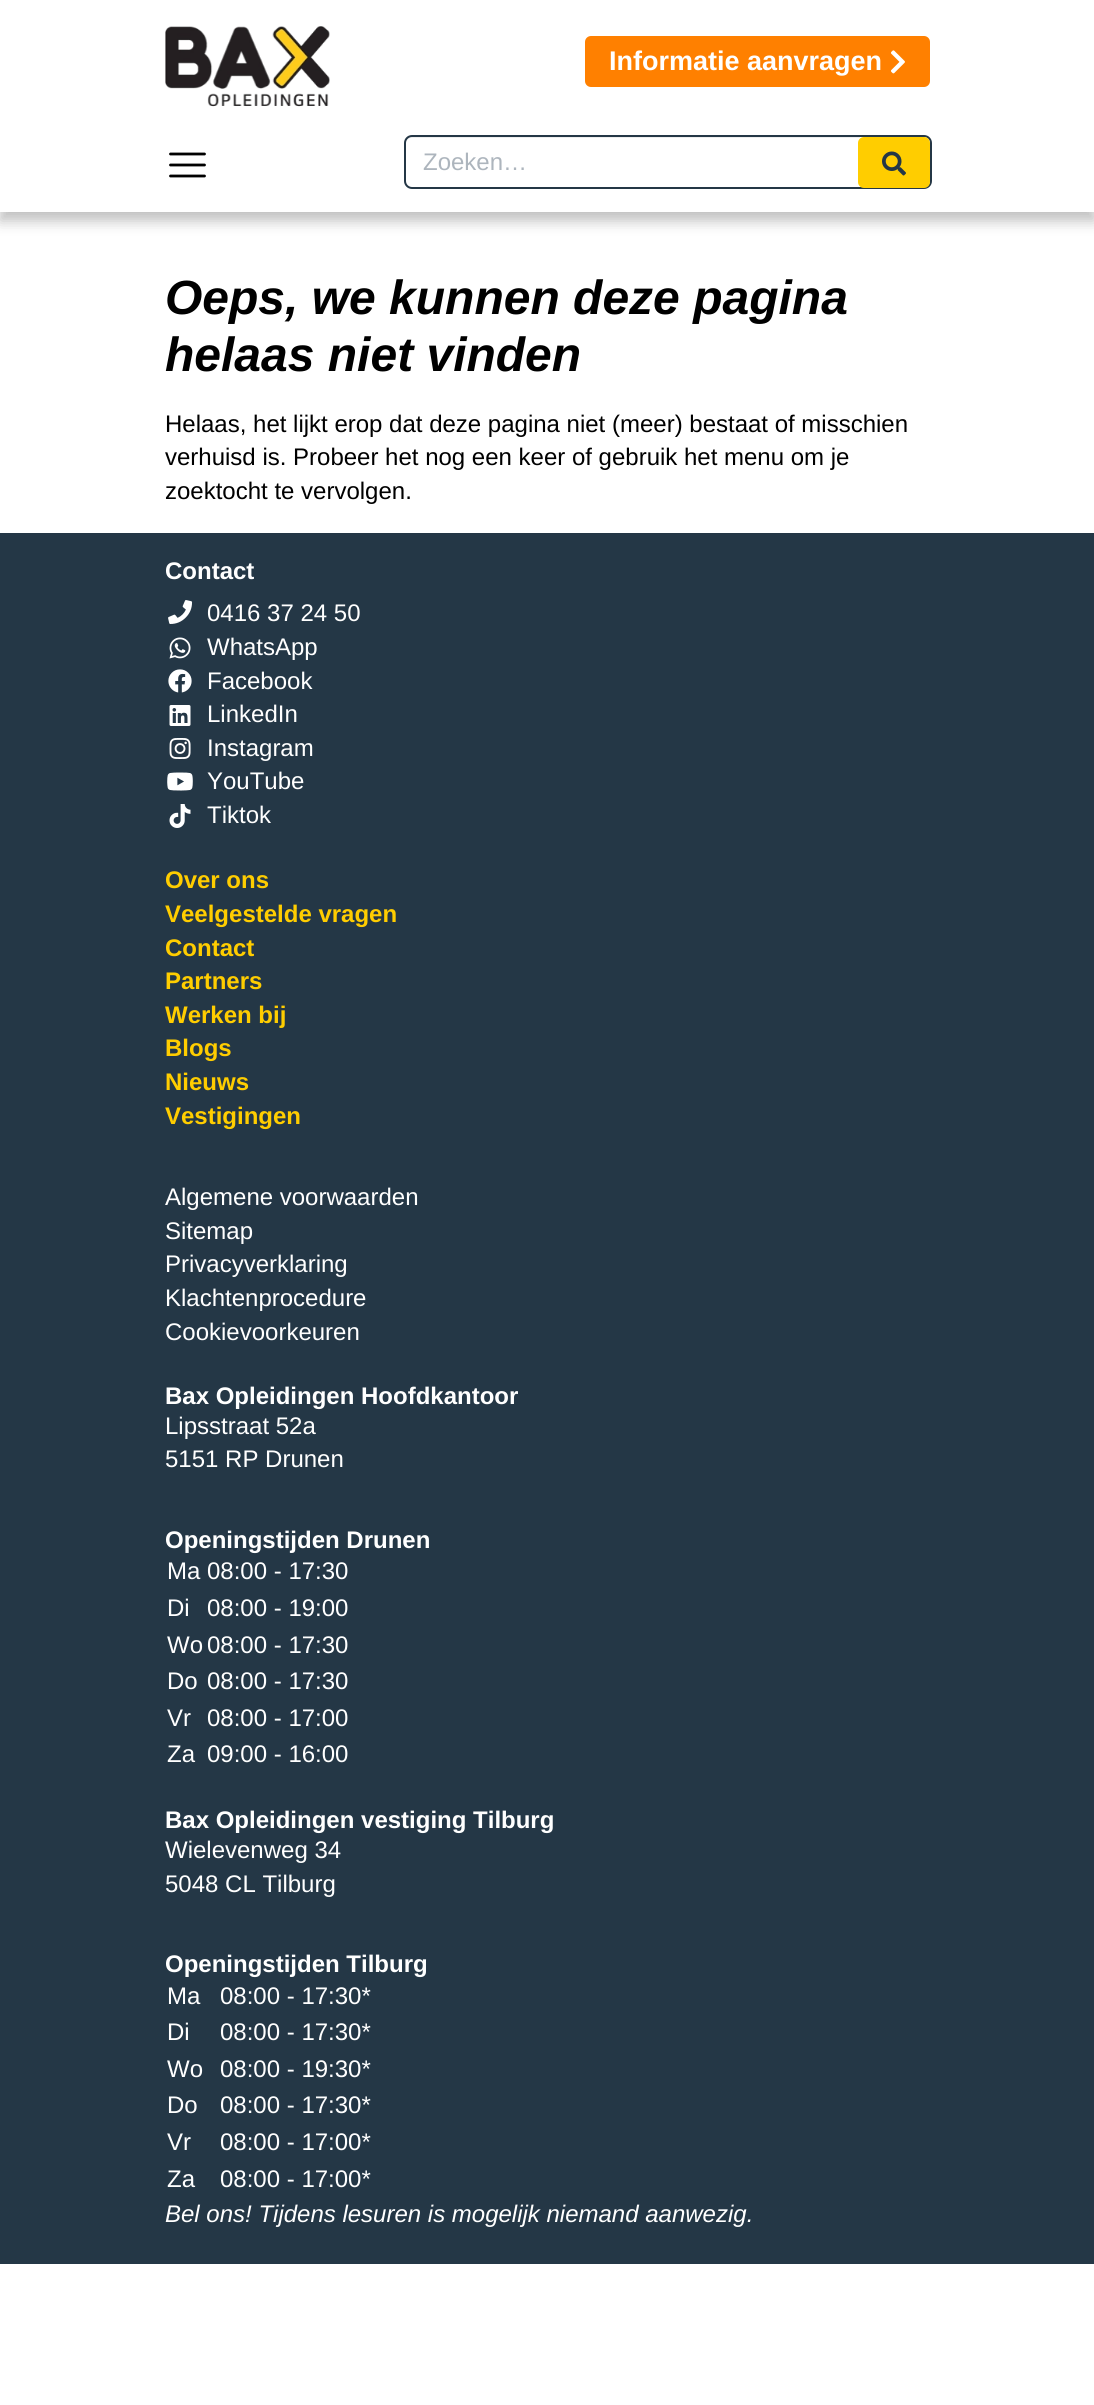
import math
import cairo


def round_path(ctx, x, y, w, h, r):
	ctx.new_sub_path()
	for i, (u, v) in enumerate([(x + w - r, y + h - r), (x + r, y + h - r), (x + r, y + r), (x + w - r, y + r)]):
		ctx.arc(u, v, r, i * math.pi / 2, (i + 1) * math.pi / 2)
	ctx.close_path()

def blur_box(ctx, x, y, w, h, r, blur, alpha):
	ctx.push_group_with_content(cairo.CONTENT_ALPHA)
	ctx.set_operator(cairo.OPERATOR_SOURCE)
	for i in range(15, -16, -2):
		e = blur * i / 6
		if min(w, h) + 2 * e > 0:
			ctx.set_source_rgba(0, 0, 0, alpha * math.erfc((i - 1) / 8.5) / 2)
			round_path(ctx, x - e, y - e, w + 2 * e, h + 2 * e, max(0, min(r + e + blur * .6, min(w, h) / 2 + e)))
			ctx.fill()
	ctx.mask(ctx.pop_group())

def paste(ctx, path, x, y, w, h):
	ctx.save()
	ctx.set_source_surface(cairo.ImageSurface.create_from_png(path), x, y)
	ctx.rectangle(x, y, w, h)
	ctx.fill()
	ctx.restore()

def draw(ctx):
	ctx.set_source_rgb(1, 1, 1)
	ctx.paint()
	ctx.set_source_rgb(0, 0, 0)
	blur_box(ctx, 0, 9, 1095, 212, 0, 7, 0.25)
	ctx.set_source_rgb(1, 1, 1)
	ctx.rectangle(0, 0, 1094, 212)
	ctx.fill()
	paste(ctx, 'media/1.png', 165, 26, 165, 81)
	ctx.set_source_rgb(1, 0.502, 0)
	round_path(ctx, 585, 36, 345, 51, 6)
	ctx.fill()
	ctx.select_font_face('Liberation Sans', cairo.FONT_SLANT_NORMAL, cairo.FONT_WEIGHT_BOLD)
	ctx.set_font_size(27)
	ctx.set_source_rgb(1, 1, 1)
	ctx.move_to(609, 70)
	ctx.show_text('Informatie aanvragen')
	paste(ctx, 'media/2.png', 891, 50, 14, 24)
	ctx.new_path()
	ctx.move_to(170.5, 154)
	ctx.line_to(204.5, 154)
	ctx.move_to(170.5, 165)
	ctx.line_to(204.5, 165)
	ctx.move_to(170.5, 176)
	ctx.line_to(204.5, 176)
	ctx.set_source_rgb(0, 0, 0)
	ctx.set_line_width(2.8)
	ctx.set_line_cap(cairo.LINE_CAP_ROUND)
	ctx.stroke()
	round_path(ctx, 405, 136, 526, 52, 7)
	ctx.set_source_rgb(0.141, 0.216, 0.275)
	ctx.set_line_width(2)
	ctx.set_line_cap(cairo.LINE_CAP_BUTT)
	ctx.stroke()
	ctx.set_source_rgba(0, 0, 0, 0.07)
	ctx.new_path()
	ctx.move_to(411, 138)
	ctx.line_to(860, 138)
	ctx.line_to(860, 137)
	ctx.line_to(411, 137)
	ctx.curve_to(407, 137, 405, 140, 405, 144)
	ctx.curve_to(405, 141, 408, 138, 411, 138)
	ctx.close_path()
	ctx.fill()
	ctx.select_font_face('Liberation Sans')
	ctx.set_font_size(24)
	ctx.set_source_rgb(0.678, 0.71, 0.741)
	ctx.move_to(423, 170)
	ctx.show_text('Zoeken…')
	ctx.set_source_rgb(1, 0.804, 0)
	round_path(ctx, 858, 137, 72, 51, 6)
	ctx.fill()
	paste(ctx, 'media/3.png', 882, 151, 24, 25)
	ctx.select_font_face('Liberation Sans', cairo.FONT_SLANT_ITALIC, cairo.FONT_WEIGHT_BOLD)
	ctx.set_font_size(48)
	ctx.set_source_rgb(0, 0, 0)
	ctx.move_to(165, 314)
	ctx.show_text('Oeps, we kunnen deze pagina')
	ctx.move_to(165, 371)
	ctx.show_text('helaas niet vinden')
	ctx.select_font_face('Liberation Sans')
	ctx.set_font_size(24)
	for x, y, s in [
		(165, 432, 'Helaas, het lijkt erop dat deze pagina niet (meer) bestaat of misschien'),
		(165, 465, 'verhuisd is. Probeer het nog een keer of gebruik het menu om je'),
		(165, 499, 'zoektocht te vervolgen.'),
	]:
		ctx.move_to(x, y)
		ctx.show_text(s)
	ctx.set_source_rgb(0.141, 0.216, 0.275)
	ctx.rectangle(0, 533, 1094, 1731)
	ctx.fill()
	ctx.select_font_face('Liberation Sans', cairo.FONT_SLANT_NORMAL, cairo.FONT_WEIGHT_BOLD)
	ctx.set_source_rgb(1, 1, 1)
	ctx.move_to(165, 579)
	ctx.show_text('Contact')
	paste(ctx, 'media/4.png', 168, 600, 25, 24)
	ctx.select_font_face('Liberation Sans')
	ctx.move_to(207, 621)
	ctx.show_text('0416 37 24 50')
	paste(ctx, 'media/5.png', 169, 637, 22, 22)
	ctx.move_to(207, 655)
	ctx.show_text('WhatsApp')
	paste(ctx, 'media/6.png', 168, 669, 24, 24)
	ctx.move_to(207, 689)
	ctx.show_text('Facebook')
	paste(ctx, 'media/7.png', 169, 705, 22, 21)
	ctx.move_to(207, 722)
	ctx.show_text('LinkedIn')
	paste(ctx, 'media/8.png', 169, 738, 22, 21)
	ctx.move_to(207, 756)
	ctx.show_text('Instagram')
	paste(ctx, 'media/9.png', 167, 772, 26, 19)
	ctx.move_to(207, 789)
	ctx.show_text('YouTube')
	paste(ctx, 'media/10.png', 169, 804, 22, 24)
	ctx.move_to(207, 823)
	ctx.show_text('Tiktok')
	ctx.select_font_face('Liberation Sans', cairo.FONT_SLANT_NORMAL, cairo.FONT_WEIGHT_BOLD)
	ctx.set_source_rgb(1, 0.804, 0)
	for x, y, s in [
		(165, 888, 'Over ons'),
		(165, 922, 'Veelgestelde vragen'),
		(165, 956, 'Contact'),
		(165, 989, 'Partners'),
		(165, 1023, 'Werken bij'),
		(165, 1056, 'Blogs'),
		(165, 1090, 'Nieuws'),
		(165, 1124, 'Vestigingen'),
	]:
		ctx.move_to(x, y)
		ctx.show_text(s)
	ctx.select_font_face('Liberation Sans')
	ctx.set_source_rgb(1, 1, 1)
	for x, y, s in [
		(165, 1205, 'Algemene voorwaarden'),
		(165, 1239, 'Sitemap'),
		(165, 1272, 'Privacyverklaring'),
		(165, 1306, 'Klachtenprocedure'),
		(165, 1340, 'Cookievoorkeuren'),
	]:
		ctx.move_to(x, y)
		ctx.show_text(s)
	ctx.select_font_face('Liberation Sans', cairo.FONT_SLANT_NORMAL, cairo.FONT_WEIGHT_BOLD)
	ctx.move_to(165, 1404)
	ctx.show_text('Bax Opleidingen Hoofdkantoor')
	ctx.select_font_face('Liberation Sans')
	ctx.move_to(165, 1434)
	ctx.show_text('Lipsstraat 52a')
	ctx.move_to(165, 1467)
	ctx.show_text('5151 RP Drunen')
	ctx.select_font_face('Liberation Sans', cairo.FONT_SLANT_NORMAL, cairo.FONT_WEIGHT_BOLD)
	ctx.move_to(165, 1548)
	ctx.show_text('Openingstijden Drunen')
	ctx.select_font_face('Liberation Sans')
	for x, y, s in [
		(167, 1579, 'Ma'),
		(207, 1579, '08:00 - 17:30'),
		(167, 1616, 'Di'),
		(207, 1616, '08:00 - 19:00'),
		(167, 1653, 'Wo'),
		(207, 1653, '08:00 - 17:30'),
		(167, 1689, 'Do'),
		(207, 1689, '08:00 - 17:30'),
		(167, 1726, 'Vr'),
		(207, 1726, '08:00 - 17:00'),
		(167, 1762, 'Za'),
		(207, 1762, '09:00 - 16:00'),
	]:
		ctx.move_to(x, y)
		ctx.show_text(s)
	ctx.select_font_face('Liberation Sans', cairo.FONT_SLANT_NORMAL, cairo.FONT_WEIGHT_BOLD)
	ctx.move_to(165, 1828)
	ctx.show_text('Bax Opleidingen vestiging Tilburg')
	ctx.select_font_face('Liberation Sans')
	ctx.move_to(165, 1858)
	ctx.show_text('Wielevenweg 34')
	ctx.move_to(165, 1892)
	ctx.show_text('5048 CL Tilburg')
	ctx.select_font_face('Liberation Sans', cairo.FONT_SLANT_NORMAL, cairo.FONT_WEIGHT_BOLD)
	ctx.move_to(165, 1972)
	ctx.show_text('Openingstijden Tilburg')
	ctx.select_font_face('Liberation Sans')
	for x, y, s in [
		(167, 2004, 'Ma'),
		(220, 2004, '08:00 - 17:30*'),
		(167, 2040, 'Di'),
		(220, 2040, '08:00 - 17:30*'),
		(167, 2077, 'Wo'),
		(220, 2077, '08:00 - 19:30*'),
		(167, 2113, 'Do'),
		(220, 2113, '08:00 - 17:30*'),
		(167, 2150, 'Vr'),
		(220, 2150, '08:00 - 17:00*'),
		(167, 2187, 'Za'),
		(220, 2187, '08:00 - 17:00*'),
	]:
		ctx.move_to(x, y)
		ctx.show_text(s)
	ctx.select_font_face('Liberation Sans', cairo.FONT_SLANT_ITALIC)
	ctx.move_to(165, 2222)
	ctx.show_text('Bel ons! Tijdens lesuren is mogelijk niemand aanwezig.')


surface = cairo.ImageSurface(cairo.FORMAT_RGB24, 1094, 2405)
ctx = cairo.Context(surface)
options = cairo.FontOptions()
options.set_hint_metrics(cairo.HINT_METRICS_OFF)
options.set_hint_style(cairo.HINT_STYLE_NONE)
ctx.set_font_options(options)
ctx.set_miter_limit(4)
draw(ctx)
surface.write_to_png('image.png')
